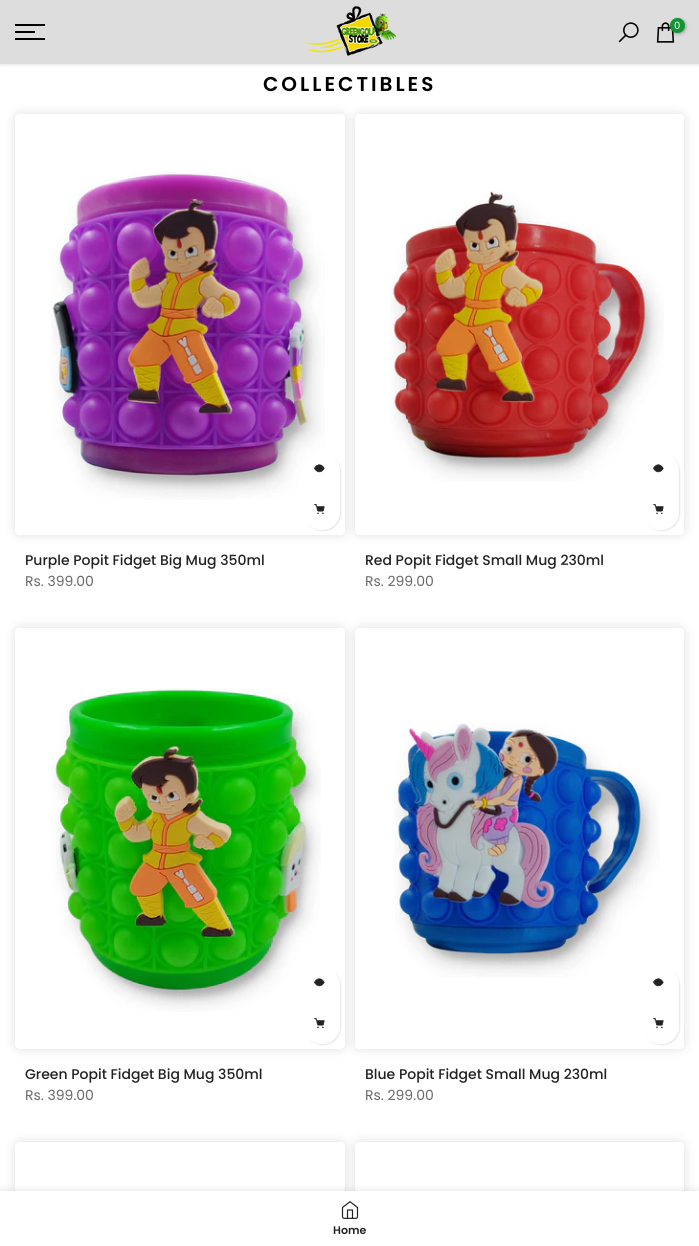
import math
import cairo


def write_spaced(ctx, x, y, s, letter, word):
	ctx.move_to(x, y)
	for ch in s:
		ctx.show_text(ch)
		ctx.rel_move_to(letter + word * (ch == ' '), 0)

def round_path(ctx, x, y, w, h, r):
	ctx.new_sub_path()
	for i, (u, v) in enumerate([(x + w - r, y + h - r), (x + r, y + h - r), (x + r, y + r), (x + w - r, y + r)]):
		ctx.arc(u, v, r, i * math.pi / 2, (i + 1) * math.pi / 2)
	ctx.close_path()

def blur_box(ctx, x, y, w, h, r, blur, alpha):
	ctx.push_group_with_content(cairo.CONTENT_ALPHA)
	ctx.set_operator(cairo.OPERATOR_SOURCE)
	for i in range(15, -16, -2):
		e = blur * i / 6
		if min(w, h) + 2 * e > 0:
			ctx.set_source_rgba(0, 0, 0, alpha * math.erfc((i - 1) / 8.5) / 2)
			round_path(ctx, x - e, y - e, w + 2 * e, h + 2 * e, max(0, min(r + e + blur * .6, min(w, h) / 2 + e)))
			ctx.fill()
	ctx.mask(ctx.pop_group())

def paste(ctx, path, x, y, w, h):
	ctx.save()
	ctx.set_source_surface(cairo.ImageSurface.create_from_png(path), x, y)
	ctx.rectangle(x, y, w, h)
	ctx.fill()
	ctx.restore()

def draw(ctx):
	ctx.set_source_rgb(1, 1, 1)
	ctx.paint()
	ctx.set_source_rgb(0, 0, 0)
	blur_box(ctx, 0, 1, 699, 64, 0, 1.5, 0.1)
	ctx.set_source_rgb(0.867, 0.867, 0.867)
	ctx.rectangle(0, 0, 699, 64)
	ctx.fill()
	ctx.set_source_rgb(0, 0, 0)
	ctx.rectangle(15, 24, 30, 2)
	ctx.rectangle(15, 31, 20, 2)
	ctx.rectangle(15, 38, 30, 2)
	ctx.fill()
	paste(ctx, 'media/1.png', 304, 6, 93, 50)
	paste(ctx, 'media/2.png', 618, 22, 21, 21)
	paste(ctx, 'media/3.png', 656, 22, 19, 21)
	ctx.set_source_rgb(0, 0, 0)
	blur_box(ctx, 671, 19, 15, 15, 7.5, 1.5, 0.3)
	ctx.set_source_rgb(0.063, 0.584, 0.2)
	ctx.arc(677.5, 25.5, 7.5, 0, 2 * math.pi)
	ctx.fill()
	ctx.select_font_face('Poppins')
	ctx.set_font_size(10)
	ctx.set_source_rgb(1, 1, 1)
	ctx.move_to(674, 29)
	ctx.show_text('0')
	ctx.select_font_face('Poppins SemiBold')
	ctx.set_font_size(20)
	ctx.set_source_rgb(0, 0, 0)
	write_spaced(ctx, 263, 91, 'COLLECTIBLES', 3, 0)
	ctx.save()
	ctx.set_fill_rule(cairo.FILL_RULE_EVEN_ODD)
	ctx.new_path()
	ctx.move_to(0, 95)
	ctx.line_to(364, 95)
	ctx.line_to(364, 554)
	ctx.line_to(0, 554)
	ctx.close_path()
	ctx.move_to(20, 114)
	ctx.line_to(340, 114)
	ctx.curve_to(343, 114, 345, 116, 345, 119)
	ctx.line_to(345, 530)
	ctx.curve_to(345, 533, 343, 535, 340, 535)
	ctx.line_to(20, 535)
	ctx.curve_to(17, 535, 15, 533, 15, 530)
	ctx.line_to(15, 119)
	ctx.curve_to(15, 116, 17, 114, 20, 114)
	ctx.close_path()
	ctx.clip()
	ctx.set_source_rgb(0, 0, 0)
	blur_box(ctx, 15, 114, 330, 421, 5, 6, 0.12)
	ctx.restore()
	paste(ctx, 'media/4.png', 51, 169, 274, 331)
	ctx.set_source_rgb(0, 0, 0)
	blur_box(ctx, 305, 454, 36, 77, 18, 0.5, 0.1)
	ctx.save()
	ctx.set_fill_rule(cairo.FILL_RULE_EVEN_ODD)
	ctx.new_path()
	ctx.move_to(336, 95)
	ctx.line_to(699, 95)
	ctx.line_to(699, 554)
	ctx.line_to(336, 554)
	ctx.close_path()
	ctx.move_to(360, 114)
	ctx.line_to(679, 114)
	ctx.curve_to(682, 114, 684, 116, 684, 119)
	ctx.line_to(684, 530)
	ctx.curve_to(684, 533, 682, 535, 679, 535)
	ctx.line_to(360, 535)
	ctx.curve_to(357, 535, 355, 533, 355, 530)
	ctx.line_to(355, 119)
	ctx.curve_to(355, 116, 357, 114, 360, 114)
	ctx.close_path()
	ctx.clip()
	blur_box(ctx, 355, 114, 329, 421, 5, 6, 0.12)
	ctx.restore()
	ctx.set_source_rgb(1, 1, 1)
	round_path(ctx, 304, 453, 36, 77, 18)
	ctx.fill()
	ctx.arc(322, 471, 18, 0, 2 * math.pi)
	ctx.fill()
	paste(ctx, 'media/5.png', 314, 464, 11, 9)
	ctx.arc(322, 512, 18, 0, 2 * math.pi)
	ctx.fill()
	paste(ctx, 'media/6.png', 314, 504, 11, 10)
	ctx.select_font_face('Poppins Medium')
	ctx.set_font_size(14)
	ctx.set_source_rgb(0.133, 0.133, 0.133)
	ctx.move_to(25, 565)
	ctx.show_text('Purple Popit Fidget Big Mug 350ml')
	ctx.select_font_face('Poppins')
	ctx.set_source_rgb(0.412, 0.412, 0.412)
	ctx.move_to(25, 586)
	ctx.show_text('Rs. 399.00')
	paste(ctx, 'media/7.png', 390, 191, 274, 291)
	ctx.set_source_rgb(0, 0, 0)
	blur_box(ctx, 644, 454, 36, 77, 18, 0.5, 0.1)
	ctx.set_source_rgb(1, 1, 1)
	round_path(ctx, 643, 453, 36, 77, 18)
	ctx.fill()
	ctx.arc(661, 471, 18, 0, 2 * math.pi)
	ctx.fill()
	paste(ctx, 'media/5.png', 653, 464, 11, 9)
	ctx.arc(661, 512, 18, 0, 2 * math.pi)
	ctx.fill()
	paste(ctx, 'media/6.png', 653, 504, 11, 10)
	ctx.select_font_face('Poppins Medium')
	ctx.set_source_rgb(0.133, 0.133, 0.133)
	ctx.move_to(365, 565)
	ctx.show_text('Red Popit Fidget Small Mug 230ml')
	ctx.select_font_face('Poppins')
	ctx.set_source_rgb(0.412, 0.412, 0.412)
	ctx.move_to(365, 586)
	ctx.show_text('Rs. 299.00')
	ctx.save()
	ctx.set_fill_rule(cairo.FILL_RULE_EVEN_ODD)
	ctx.new_path()
	ctx.move_to(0, 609)
	ctx.line_to(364, 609)
	ctx.line_to(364, 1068)
	ctx.line_to(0, 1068)
	ctx.close_path()
	ctx.move_to(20, 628)
	ctx.line_to(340, 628)
	ctx.curve_to(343, 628, 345, 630, 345, 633)
	ctx.line_to(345, 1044)
	ctx.curve_to(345, 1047, 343, 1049, 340, 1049)
	ctx.line_to(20, 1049)
	ctx.curve_to(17, 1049, 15, 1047, 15, 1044)
	ctx.line_to(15, 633)
	ctx.curve_to(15, 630, 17, 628, 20, 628)
	ctx.close_path()
	ctx.clip()
	ctx.set_source_rgb(0, 0, 0)
	blur_box(ctx, 15, 628, 330, 421, 5, 6, 0.12)
	ctx.restore()
	paste(ctx, 'media/8.png', 52, 688, 269, 324)
	ctx.set_source_rgb(0, 0, 0)
	blur_box(ctx, 305, 968, 36, 77, 18, 0.5, 0.1)
	ctx.save()
	ctx.set_fill_rule(cairo.FILL_RULE_EVEN_ODD)
	ctx.new_path()
	ctx.move_to(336, 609)
	ctx.line_to(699, 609)
	ctx.line_to(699, 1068)
	ctx.line_to(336, 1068)
	ctx.close_path()
	ctx.move_to(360, 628)
	ctx.line_to(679, 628)
	ctx.curve_to(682, 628, 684, 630, 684, 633)
	ctx.line_to(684, 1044)
	ctx.curve_to(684, 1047, 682, 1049, 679, 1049)
	ctx.line_to(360, 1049)
	ctx.curve_to(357, 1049, 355, 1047, 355, 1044)
	ctx.line_to(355, 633)
	ctx.curve_to(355, 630, 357, 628, 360, 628)
	ctx.close_path()
	ctx.clip()
	blur_box(ctx, 355, 628, 329, 421, 5, 6, 0.12)
	ctx.restore()
	ctx.set_source_rgb(1, 1, 1)
	round_path(ctx, 304, 967, 36, 77, 18)
	ctx.fill()
	ctx.arc(322, 985, 18, 0, 2 * math.pi)
	ctx.fill()
	paste(ctx, 'media/5.png', 314, 978, 11, 9)
	ctx.arc(322, 1026, 18, 0, 2 * math.pi)
	ctx.fill()
	paste(ctx, 'media/6.png', 314, 1018, 11, 10)
	ctx.select_font_face('Poppins Medium')
	ctx.set_source_rgb(0.133, 0.133, 0.133)
	ctx.move_to(25, 1079)
	ctx.show_text('Green Popit Fidget Big Mug 350ml')
	ctx.select_font_face('Poppins')
	ctx.set_source_rgb(0.412, 0.412, 0.412)
	ctx.move_to(25, 1100)
	ctx.show_text('Rs. 399.00')
	paste(ctx, 'media/9.png', 394, 723, 266, 255)
	ctx.set_source_rgb(0, 0, 0)
	blur_box(ctx, 644, 968, 36, 77, 18, 0.5, 0.1)
	ctx.set_source_rgb(1, 1, 1)
	round_path(ctx, 643, 967, 36, 77, 18)
	ctx.fill()
	ctx.arc(661, 985, 18, 0, 2 * math.pi)
	ctx.fill()
	paste(ctx, 'media/5.png', 653, 978, 11, 9)
	ctx.arc(661, 1026, 18, 0, 2 * math.pi)
	ctx.fill()
	paste(ctx, 'media/6.png', 653, 1018, 11, 10)
	ctx.select_font_face('Poppins Medium')
	ctx.set_source_rgb(0.133, 0.133, 0.133)
	ctx.move_to(365, 1079)
	ctx.show_text('Blue Popit Fidget Small Mug 230ml')
	ctx.select_font_face('Poppins')
	ctx.set_source_rgb(0.412, 0.412, 0.412)
	ctx.move_to(365, 1100)
	ctx.show_text('Rs. 299.00')
	ctx.save()
	ctx.set_fill_rule(cairo.FILL_RULE_EVEN_ODD)
	ctx.new_path()
	ctx.move_to(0, 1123)
	ctx.line_to(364, 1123)
	ctx.line_to(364, 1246)
	ctx.line_to(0, 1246)
	ctx.close_path()
	ctx.move_to(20, 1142)
	ctx.line_to(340, 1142)
	ctx.curve_to(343, 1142, 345, 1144, 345, 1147)
	ctx.line_to(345, 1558)
	ctx.curve_to(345, 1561, 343, 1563, 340, 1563)
	ctx.line_to(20, 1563)
	ctx.curve_to(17, 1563, 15, 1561, 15, 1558)
	ctx.line_to(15, 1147)
	ctx.curve_to(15, 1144, 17, 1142, 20, 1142)
	ctx.close_path()
	ctx.clip()
	ctx.set_source_rgb(0, 0, 0)
	blur_box(ctx, 15, 1142, 330, 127, 5, 6, 0.12)
	ctx.restore()
	ctx.save()
	ctx.set_fill_rule(cairo.FILL_RULE_EVEN_ODD)
	ctx.new_path()
	ctx.move_to(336, 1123)
	ctx.line_to(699, 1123)
	ctx.line_to(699, 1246)
	ctx.line_to(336, 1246)
	ctx.close_path()
	ctx.move_to(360, 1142)
	ctx.line_to(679, 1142)
	ctx.curve_to(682, 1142, 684, 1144, 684, 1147)
	ctx.line_to(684, 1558)
	ctx.curve_to(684, 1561, 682, 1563, 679, 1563)
	ctx.line_to(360, 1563)
	ctx.curve_to(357, 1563, 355, 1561, 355, 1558)
	ctx.line_to(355, 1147)
	ctx.curve_to(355, 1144, 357, 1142, 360, 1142)
	ctx.close_path()
	ctx.clip()
	ctx.set_source_rgb(0, 0, 0)
	blur_box(ctx, 355, 1142, 329, 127, 5, 6, 0.12)
	ctx.restore()
	ctx.set_source_rgb(0, 0, 0)
	blur_box(ctx, 0, 1191, 699, 55, 0, 4.5, 0.12)
	ctx.set_source_rgb(1, 1, 1)
	ctx.rectangle(0, 1191, 699, 55)
	ctx.fill()
	paste(ctx, 'media/10.png', 341, 1201, 18, 18)
	ctx.select_font_face('Poppins SemiBold')
	ctx.set_font_size(11)
	ctx.set_source_rgb(0.133, 0.133, 0.133)
	ctx.move_to(333, 1234)
	ctx.show_text('Home')


surface = cairo.ImageSurface(cairo.FORMAT_RGB24, 699, 1246)
ctx = cairo.Context(surface)
options = cairo.FontOptions()
options.set_hint_metrics(cairo.HINT_METRICS_OFF)
options.set_hint_style(cairo.HINT_STYLE_NONE)
ctx.set_font_options(options)
ctx.set_miter_limit(4)
draw(ctx)
surface.write_to_png('image.png')
